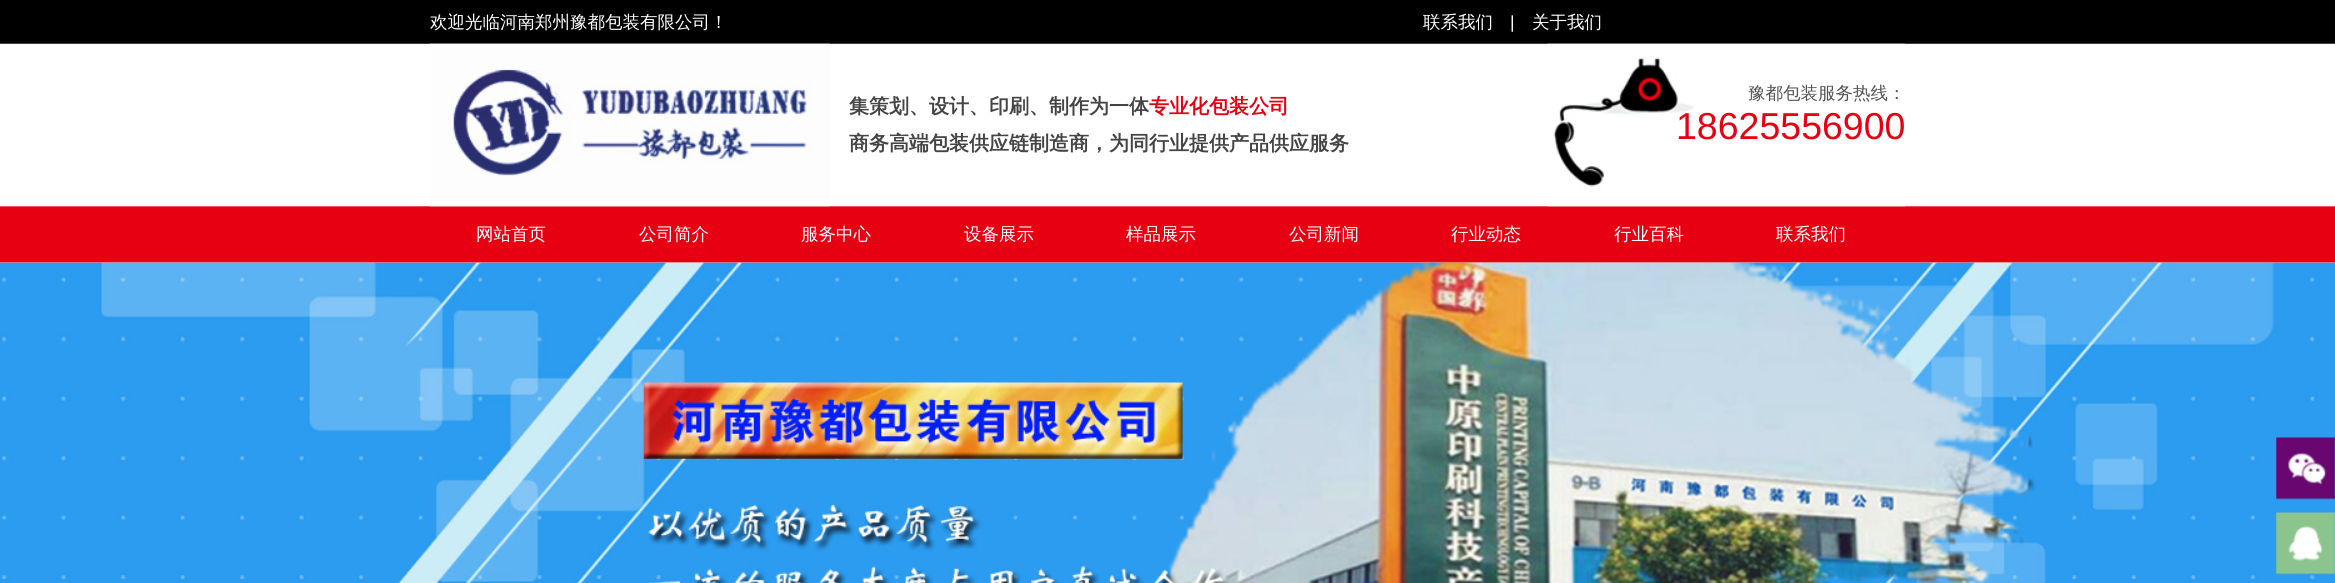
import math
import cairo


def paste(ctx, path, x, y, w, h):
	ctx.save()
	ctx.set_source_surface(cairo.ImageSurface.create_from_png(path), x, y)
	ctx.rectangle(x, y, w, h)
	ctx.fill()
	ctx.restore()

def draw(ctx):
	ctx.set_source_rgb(1, 1, 1)
	ctx.paint()
	paste(ctx, 'media/1.png', 0, 0, 2335, 263)
	ctx.select_font_face('WenQuanYi Zen Hei Medium')
	ctx.set_font_size(17.5)
	ctx.set_source_rgb(1, 1, 1)
	ctx.move_to(430, 28)
	ctx.show_text('欢迎光临河南郑州豫都包装有限公司！')
	ctx.move_to(1423, 28)
	ctx.show_text('联系我们')
	ctx.select_font_face('Liberation Sans')
	ctx.move_to(1510, 28)
	ctx.show_text('|')
	ctx.select_font_face('WenQuanYi Zen Hei Medium')
	ctx.move_to(1532, 28)
	ctx.show_text('关于我们')
	paste(ctx, 'media/2.png', 430, 43, 400, 164)
	ctx.select_font_face('WenQuanYi Zen Hei', cairo.FONT_SLANT_NORMAL, cairo.FONT_WEIGHT_BOLD)
	ctx.set_font_size(20)
	ctx.set_source_rgb(0.267, 0.267, 0.267)
	ctx.move_to(849, 113)
	ctx.show_text('集策划、设计、印刷、制作为一体')
	ctx.set_source_rgb(0.902, 0, 0.071)
	ctx.move_to(1149, 113)
	ctx.show_text('专业化包装公司')
	ctx.set_source_rgb(0.267, 0.267, 0.267)
	ctx.move_to(849, 150)
	ctx.show_text('商务高端包装供应链制造商，为同行业提供产品供应服务')
	paste(ctx, 'media/3.png', 1547, 43, 358, 164)
	ctx.select_font_face('WenQuanYi Zen Hei Medium')
	ctx.set_font_size(17.5)
	ctx.set_source_rgb(0.325, 0.325, 0.325)
	ctx.move_to(1748, 99)
	ctx.show_text('豫都包装服务热线：')
	ctx.select_font_face('Liberation Sans')
	ctx.set_font_size(37.5)
	ctx.set_source_rgb(0.902, 0, 0.071)
	ctx.move_to(1676, 139)
	ctx.show_text('18625556900')
	ctx.select_font_face('WenQuanYi Zen Hei Medium')
	ctx.set_font_size(17.5)
	ctx.set_source_rgb(1, 1, 1)
	for x, y, s in [
		(476, 240, '网站首页'),
		(639, 240, '公司简介'),
		(801, 240, '服务中心'),
		(964, 240, '设备展示'),
		(1126, 240, '样品展示'),
		(1289, 240, '公司新闻'),
		(1451, 240, '行业动态'),
		(1614, 240, '行业百科'),
		(1776, 240, '联系我们'),
	]:
		ctx.move_to(x, y)
		ctx.show_text(s)
	paste(ctx, 'media/4.png', 0, 262, 2335, 321)
	paste(ctx, 'media/5.png', 2276, 437, 59, 63)
	paste(ctx, 'media/6.png', 2276, 512, 59, 63)


surface = cairo.ImageSurface(cairo.FORMAT_RGB24, 2335, 583)
ctx = cairo.Context(surface)
options = cairo.FontOptions()
options.set_hint_metrics(cairo.HINT_METRICS_OFF)
options.set_hint_style(cairo.HINT_STYLE_NONE)
ctx.set_font_options(options)
ctx.set_miter_limit(4)
draw(ctx)
surface.write_to_png('image.png')
